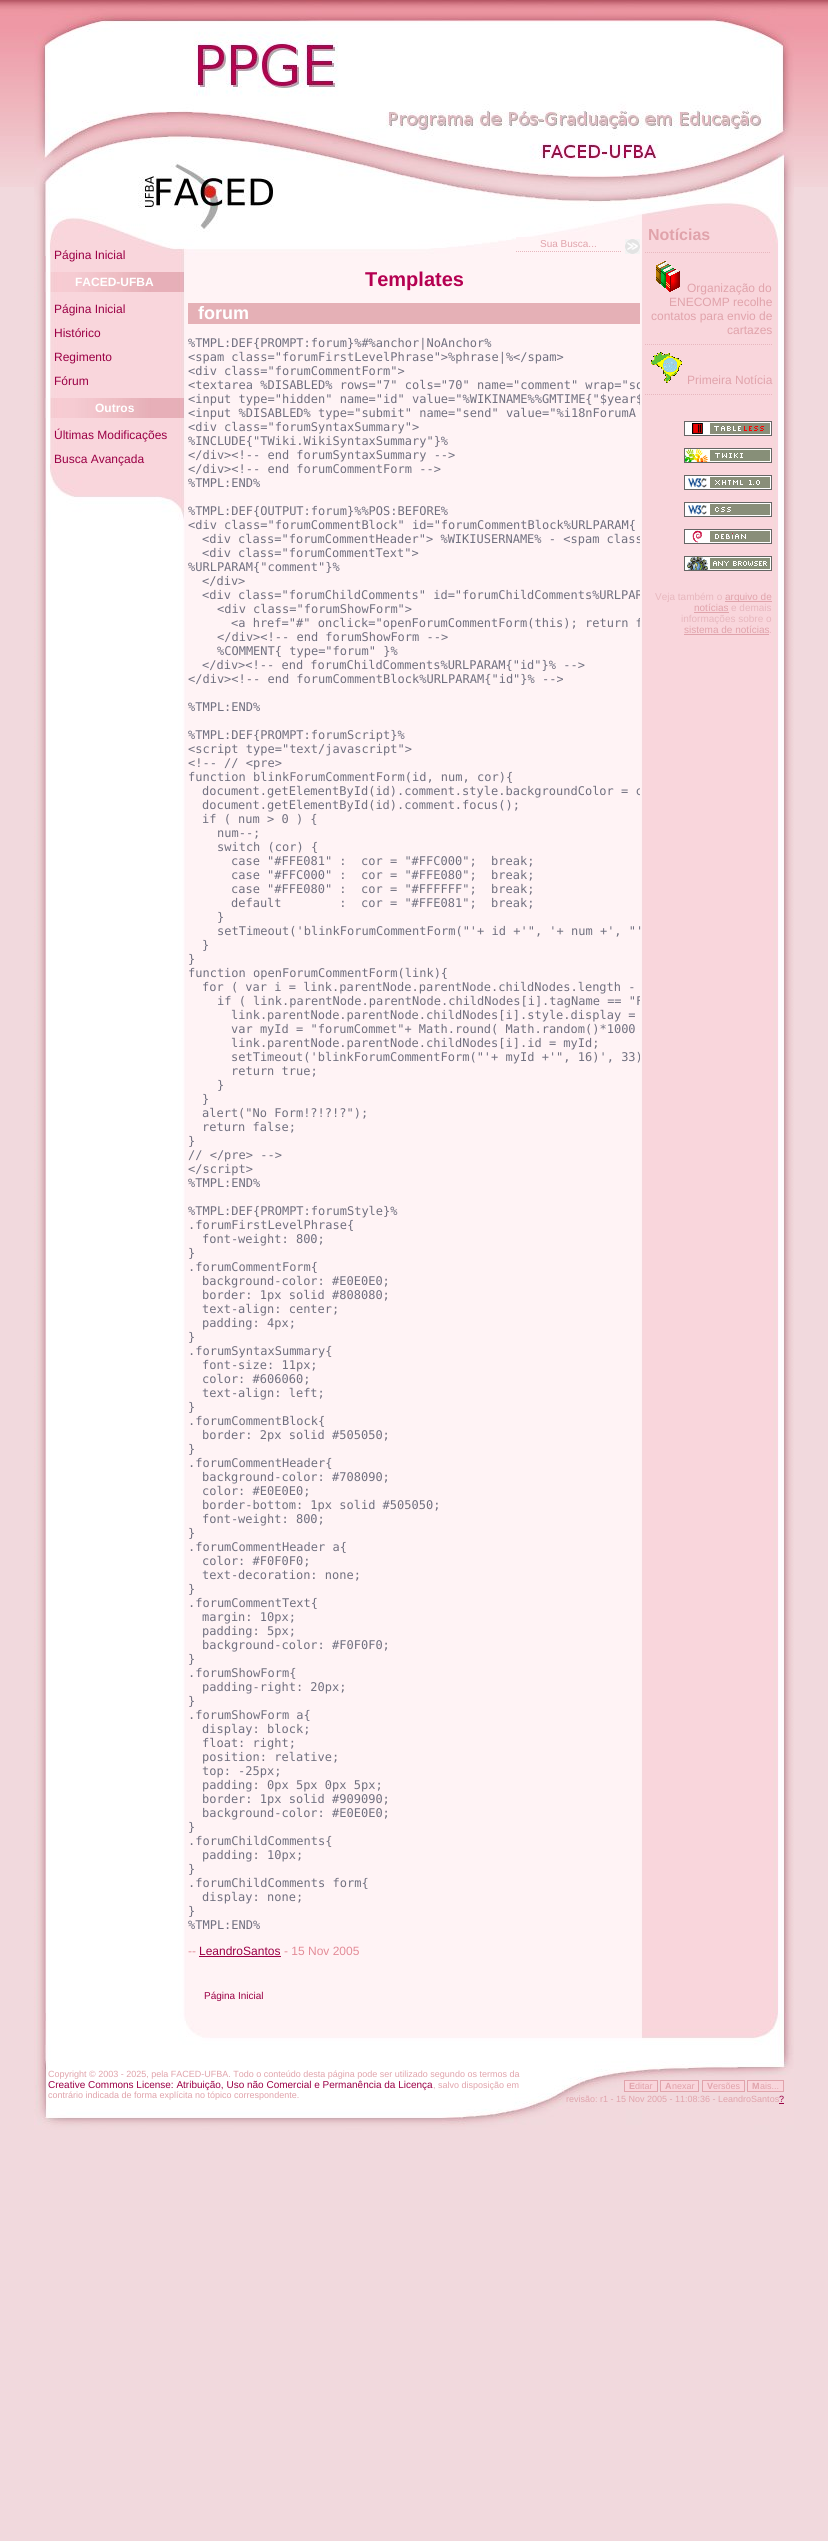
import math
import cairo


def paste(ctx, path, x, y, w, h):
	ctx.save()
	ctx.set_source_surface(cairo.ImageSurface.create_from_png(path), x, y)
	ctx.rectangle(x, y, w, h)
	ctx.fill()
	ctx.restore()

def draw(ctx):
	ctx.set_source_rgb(0.945, 0.851, 0.867)
	ctx.paint()
	paste(ctx, 'media/1.png', 0, 0, 828, 187)
	paste(ctx, 'media/2.png', 34, 256, 760, 1757)
	paste(ctx, 'media/3.png', 34, 0, 760, 256)
	ctx.set_source_rgb(1, 0.953, 0.961)
	ctx.rectangle(516, 237, 14, 3)
	ctx.fill()
	ctx.new_path()
	ctx.move_to(516, 251.5)
	ctx.line_to(622, 251.5)
	ctx.set_source_rgb(0.906, 0.718, 0.745)
	ctx.set_line_width(1)
	ctx.set_dash([1, 1])
	ctx.stroke()
	ctx.select_font_face('Liberation Sans')
	ctx.set_font_size(10)
	ctx.set_source_rgb(0.878, 0.639, 0.671)
	ctx.move_to(540, 247)
	ctx.show_text('Sua Busca...')
	paste(ctx, 'media/4.png', 625, 239, 15, 15)
	ctx.new_path()
	ctx.move_to(645, 252.5)
	ctx.line_to(770, 252.5)
	ctx.set_source_rgb(0.906, 0.718, 0.745)
	ctx.stroke()
	ctx.select_font_face('Liberation Sans', cairo.FONT_SLANT_NORMAL, cairo.FONT_WEIGHT_BOLD)
	ctx.set_font_size(16)
	ctx.set_source_rgb(0.878, 0.639, 0.671)
	ctx.move_to(648, 240)
	ctx.show_text('Notícias')
	ctx.new_path()
	ctx.move_to(645, 344.5)
	ctx.line_to(772, 344.5)
	ctx.set_source_rgb(0.906, 0.718, 0.745)
	ctx.stroke()
	paste(ctx, 'media/5.png', 656, 261, 24, 31)
	ctx.select_font_face('Liberation Sans')
	ctx.set_font_size(12)
	ctx.set_source_rgb(0.878, 0.639, 0.671)
	for x, y, s in [
		(687, 292, 'Organização do'),
		(669, 306, 'ENECOMP recolhe'),
		(651, 320, 'contatos para envio de'),
		(727, 334, 'cartazes'),
	]:
		ctx.move_to(x, y)
		ctx.show_text(s)
	ctx.new_path()
	ctx.move_to(645, 394.5)
	ctx.line_to(772, 394.5)
	ctx.set_source_rgb(0.906, 0.718, 0.745)
	ctx.stroke()
	paste(ctx, 'media/6.png', 651, 352, 31, 31)
	ctx.set_source_rgb(0.878, 0.639, 0.671)
	ctx.move_to(687, 384)
	ctx.show_text('Primeira Notícia')
	paste(ctx, 'media/7.png', 684, 421, 88, 15)
	paste(ctx, 'media/8.png', 684, 448, 88, 15)
	paste(ctx, 'media/9.png', 684, 475, 88, 15)
	paste(ctx, 'media/10.png', 684, 502, 88, 15)
	paste(ctx, 'media/11.png', 684, 529, 88, 15)
	paste(ctx, 'media/12.png', 684, 556, 88, 15)
	ctx.set_font_size(10)
	ctx.set_source_rgb(0.906, 0.718, 0.745)
	ctx.move_to(655, 600)
	ctx.show_text('Veja também o')
	ctx.set_source_rgb(0.878, 0.639, 0.671)
	ctx.rectangle(725, 601, 47, 1)
	ctx.fill()
	ctx.move_to(725, 600)
	ctx.show_text('arquivo de')
	ctx.move_to(694, 611)
	ctx.show_text('notícias')
	ctx.rectangle(694, 612, 35, 1)
	ctx.fill()
	ctx.set_source_rgb(0.906, 0.718, 0.745)
	ctx.move_to(731, 611)
	ctx.show_text('e demais')
	ctx.move_to(681, 622)
	ctx.show_text('informações sobre o')
	ctx.set_source_rgb(0.878, 0.639, 0.671)
	ctx.move_to(684, 633)
	ctx.show_text('sistema de notícias')
	ctx.rectangle(684, 634, 85, 1)
	ctx.fill()
	ctx.set_source_rgb(0.906, 0.718, 0.745)
	ctx.move_to(769, 633)
	ctx.show_text('.')
	paste(ctx, 'media/13.png', 50, 256, 135, 208)
	paste(ctx, 'media/14.png', 36, 464, 150, 77)
	ctx.set_font_size(12)
	ctx.set_source_rgb(0.608, 0, 0.271)
	ctx.move_to(54, 259)
	ctx.show_text('Página Inicial')
	paste(ctx, 'media/15.png', 36, 272, 148, 20)
	ctx.select_font_face('Liberation Sans', cairo.FONT_SLANT_NORMAL, cairo.FONT_WEIGHT_BOLD)
	ctx.set_source_rgb(1, 1, 1)
	ctx.move_to(75, 286)
	ctx.show_text('FACED-UFBA')
	ctx.select_font_face('Liberation Sans')
	ctx.set_source_rgb(0.608, 0, 0.271)
	for x, y, s in [
		(54, 313, 'Página Inicial'),
		(54, 337, 'Histórico'),
		(54, 361, 'Regimento'),
		(54, 385, 'Fórum'),
	]:
		ctx.move_to(x, y)
		ctx.show_text(s)
	paste(ctx, 'media/15.png', 36, 398, 148, 20)
	ctx.select_font_face('Liberation Sans', cairo.FONT_SLANT_NORMAL, cairo.FONT_WEIGHT_BOLD)
	ctx.set_source_rgb(1, 1, 1)
	ctx.move_to(95, 412)
	ctx.show_text('Outros')
	ctx.select_font_face('Liberation Sans')
	ctx.set_source_rgb(0.608, 0, 0.271)
	ctx.move_to(54, 439)
	ctx.show_text('Últimas Modificações')
	ctx.move_to(54, 463)
	ctx.show_text('Busca Avançada')
	ctx.select_font_face('Liberation Sans', cairo.FONT_SLANT_NORMAL, cairo.FONT_WEIGHT_BOLD)
	ctx.set_font_size(20)
	ctx.set_source_rgb(0.71, 0, 0.318)
	ctx.move_to(365, 286)
	ctx.show_text('Templates')
	ctx.set_source_rgb(0.898, 0.69, 0.714)
	ctx.rectangle(188, 303, 452, 21)
	ctx.fill()
	ctx.set_font_size(18)
	ctx.set_source_rgb(1, 1, 1)
	ctx.move_to(198, 319)
	ctx.show_text('forum')
	ctx.select_font_face('DejaVu Sans Mono')
	ctx.set_font_size(12)
	ctx.set_source_rgb(0.439, 0.439, 0.502)
	for x, y, s in [
		(188, 347, '%TMPL:DEF{PROMPT:forum}%#%anchor|NoAnchor%'),
		(188, 361, '<spam class="forumFirstLevelPhrase">%phrase|%</spam>'),
		(188, 375, '<div class="forumCommentForm">'),
	]:
		ctx.move_to(x, y)
		ctx.show_text(s)
	ctx.save()
	ctx.rectangle(188, 336, 452, 1596)
	ctx.clip()
	ctx.move_to(188, 389)
	ctx.show_text('<textarea %DISABLED% rows="7" cols="70" name="comment" wrap="so')
	ctx.move_to(188, 403)
	ctx.show_text('<input type="hidden" name="id" value="%WIKINAME%%GMTIME{"$year$')
	ctx.restore()
	for x, y, s in [
		(188, 417, '<input %DISABLED% type="submit" name="send" value="%i18nForumA'),
		(188, 431, '<div class="forumSyntaxSummary">'),
		(188, 445, '%INCLUDE{"TWiki.WikiSyntaxSummary"}%'),
		(188, 459, '</div><!-- end forumSyntaxSummary -->'),
		(188, 473, '</div><!-- end forumCommentForm -->'),
		(188, 487, '%TMPL:END%'),
		(188, 515, '%TMPL:DEF{OUTPUT:forum}%%POS:BEFORE%'),
		(188, 529, '<div class="forumCommentBlock" id="forumCommentBlock%URLPARAM{'),
	]:
		ctx.move_to(x, y)
		ctx.show_text(s)
	ctx.save()
	ctx.rectangle(188, 336, 452, 1596)
	ctx.clip()
	ctx.move_to(202, 543)
	ctx.show_text('<div class="forumCommentHeader"> %WIKIUSERNAME% - <spam class')
	ctx.restore()
	for x, y, s in [
		(202, 557, '<div class="forumCommentText">'),
		(188, 571, '%URLPARAM{"comment"}%'),
		(202, 585, '</div>'),
	]:
		ctx.move_to(x, y)
		ctx.show_text(s)
	ctx.save()
	ctx.rectangle(188, 336, 452, 1596)
	ctx.clip()
	ctx.move_to(202, 599)
	ctx.show_text('<div class="forumChildComments" id="forumChildComments%URLPAR')
	ctx.restore()
	ctx.move_to(217, 613)
	ctx.show_text('<div class="forumShowForm">')
	ctx.save()
	ctx.rectangle(188, 336, 452, 1596)
	ctx.clip()
	ctx.move_to(231, 627)
	ctx.show_text('<a href="#" onclick="openForumCommentForm(this); return f')
	ctx.restore()
	for x, y, s in [
		(217, 641, '</div><!-- end forumShowForm -->'),
		(217, 655, '%COMMENT{ type="forum" }%'),
		(202, 669, '</div><!-- end forumChildComments%URLPARAM{"id"}% -->'),
		(188, 683, '</div><!-- end forumCommentBlock%URLPARAM{"id"}% -->'),
		(188, 711, '%TMPL:END%'),
		(188, 739, '%TMPL:DEF{PROMPT:forumScript}%'),
		(188, 753, '<script type="text/javascript">'),
		(188, 767, '<!-- // <pre>'),
		(188, 781, 'function blinkForumCommentForm(id, num, cor){'),
	]:
		ctx.move_to(x, y)
		ctx.show_text(s)
	ctx.save()
	ctx.rectangle(188, 336, 452, 1596)
	ctx.clip()
	ctx.move_to(202, 795)
	ctx.show_text('document.getElementById(id).comment.style.backgroundColor = c')
	ctx.restore()
	for x, y, s in [
		(202, 809, 'document.getElementById(id).comment.focus();'),
		(202, 823, 'if ( num > 0 ) {'),
		(217, 837, 'num--;'),
		(217, 851, 'switch (cor) {'),
		(231, 865, 'case "#FFE081" :  cor = "#FFC000";  break;'),
		(231, 879, 'case "#FFC000" :  cor = "#FFE080";  break;'),
		(231, 893, 'case "#FFE080" :  cor = "#FFFFFF";  break;'),
		(231, 907, 'default        :  cor = "#FFE081";  break;'),
		(217, 921, '}'),
		(217, 935, 'setTimeout(\'blinkForumCommentForm("\'+ id +\'", \'+ num +\', "\''),
		(202, 949, '}'),
		(188, 963, '}'),
		(188, 977, 'function openForumCommentForm(link){'),
		(202, 991, 'for ( var i = link.parentNode.parentNode.childNodes.length -'),
	]:
		ctx.move_to(x, y)
		ctx.show_text(s)
	ctx.save()
	ctx.rectangle(188, 336, 452, 1596)
	ctx.clip()
	ctx.move_to(217, 1005)
	ctx.show_text('if ( link.parentNode.parentNode.childNodes[i].tagName == "F')
	ctx.restore()
	for x, y, s in [
		(231, 1019, 'link.parentNode.parentNode.childNodes[i].style.display ='),
		(231, 1033, 'var myId = "forumCommet"+ Math.round( Math.random()*1000'),
		(231, 1047, 'link.parentNode.parentNode.childNodes[i].id = myId;'),
	]:
		ctx.move_to(x, y)
		ctx.show_text(s)
	ctx.save()
	ctx.rectangle(188, 336, 452, 1596)
	ctx.clip()
	ctx.move_to(231, 1061)
	ctx.show_text('setTimeout(\'blinkForumCommentForm("\'+ myId +\'", 16)\', 33)')
	ctx.restore()
	for x, y, s in [
		(231, 1075, 'return true;'),
		(217, 1089, '}'),
		(202, 1103, '}'),
		(202, 1117, 'alert("No Form!?!?!?");'),
		(202, 1131, 'return false;'),
		(188, 1145, '}'),
		(188, 1159, '// </pre> -->'),
		(188, 1173, '</script>'),
		(188, 1187, '%TMPL:END%'),
		(188, 1215, '%TMPL:DEF{PROMPT:forumStyle}%'),
		(188, 1229, '.forumFirstLevelPhrase{'),
		(202, 1243, 'font-weight: 800;'),
		(188, 1257, '}'),
		(188, 1271, '.forumCommentForm{'),
		(202, 1285, 'background-color: #E0E0E0;'),
		(202, 1299, 'border: 1px solid #808080;'),
		(202, 1313, 'text-align: center;'),
		(202, 1327, 'padding: 4px;'),
		(188, 1341, '}'),
		(188, 1355, '.forumSyntaxSummary{'),
		(202, 1369, 'font-size: 11px;'),
		(202, 1383, 'color: #606060;'),
		(202, 1397, 'text-align: left;'),
		(188, 1411, '}'),
		(188, 1425, '.forumCommentBlock{'),
		(202, 1439, 'border: 2px solid #505050;'),
		(188, 1453, '}'),
		(188, 1467, '.forumCommentHeader{'),
		(202, 1481, 'background-color: #708090;'),
		(202, 1495, 'color: #E0E0E0;'),
		(202, 1509, 'border-bottom: 1px solid #505050;'),
		(202, 1523, 'font-weight: 800;'),
		(188, 1537, '}'),
		(188, 1551, '.forumCommentHeader a{'),
		(202, 1565, 'color: #F0F0F0;'),
		(202, 1579, 'text-decoration: none;'),
		(188, 1593, '}'),
		(188, 1607, '.forumCommentText{'),
		(202, 1621, 'margin: 10px;'),
		(202, 1635, 'padding: 5px;'),
		(202, 1649, 'background-color: #F0F0F0;'),
		(188, 1663, '}'),
		(188, 1677, '.forumShowForm{'),
		(202, 1691, 'padding-right: 20px;'),
		(188, 1705, '}'),
		(188, 1719, '.forumShowForm a{'),
		(202, 1733, 'display: block;'),
		(202, 1747, 'float: right;'),
		(202, 1761, 'position: relative;'),
		(202, 1775, 'top: -25px;'),
		(202, 1789, 'padding: 0px 5px 0px 5px;'),
		(202, 1803, 'border: 1px solid #909090;'),
		(202, 1817, 'background-color: #E0E0E0;'),
		(188, 1831, '}'),
		(188, 1845, '.forumChildComments{'),
		(202, 1859, 'padding: 10px;'),
		(188, 1873, '}'),
		(188, 1887, '.forumChildComments form{'),
		(202, 1901, 'display: none;'),
		(188, 1915, '}'),
		(188, 1929, '%TMPL:END%'),
	]:
		ctx.move_to(x, y)
		ctx.show_text(s)
	ctx.select_font_face('Liberation Sans')
	ctx.set_source_rgb(0.89, 0.545, 0.592)
	ctx.move_to(188, 1955)
	ctx.show_text('--')
	ctx.set_source_rgb(0.608, 0, 0.271)
	ctx.move_to(199, 1955)
	ctx.show_text('LeandroSantos')
	ctx.rectangle(199, 1956, 82, 1)
	ctx.fill()
	ctx.set_source_rgb(0.89, 0.545, 0.592)
	ctx.move_to(284, 1955)
	ctx.show_text('- 15 Nov 2005')
	paste(ctx, 'media/16.png', 34, 2013, 760, 117)
	ctx.set_font_size(10)
	ctx.set_source_rgb(0.608, 0, 0.271)
	ctx.move_to(204, 1999)
	ctx.show_text('Página Inicial')
	ctx.set_font_size(9)
	ctx.set_source_rgb(0.878, 0.639, 0.671)
	ctx.move_to(48, 2077)
	ctx.show_text('Copyright © 2003 - 2025, pela FACED-UFBA. Todo o conteúdo desta página pode ser utilizado segundo os termos da')
	ctx.set_font_size(10)
	ctx.set_source_rgb(0.608, 0, 0.271)
	ctx.move_to(48, 2088)
	ctx.show_text('Creative Commons License: Atribuição, Uso não Comercial e Permanência da Licença')
	ctx.set_font_size(9)
	ctx.set_source_rgb(0.878, 0.639, 0.671)
	ctx.move_to(433, 2088)
	ctx.show_text(', salvo disposição em')
	ctx.move_to(48, 2098)
	ctx.show_text('contrário indicada de forma explícita no tópico correspondente.')
	ctx.set_source_rgb(0.976, 0.839, 0.863)
	ctx.rectangle(625, 2081, 32, 10)
	ctx.fill()
	ctx.select_font_face('Liberation Sans', cairo.FONT_SLANT_NORMAL, cairo.FONT_WEIGHT_BOLD)
	ctx.set_source_rgb(0.878, 0.639, 0.671)
	ctx.move_to(629, 2089)
	ctx.show_text('E')
	ctx.rectangle(624, 2080, 34, 1)
	ctx.rectangle(624, 2091, 11, 1)
	ctx.rectangle(624, 2080, 1, 12)
	ctx.fill()
	ctx.select_font_face('Liberation Sans')
	ctx.move_to(635, 2089)
	ctx.show_text('ditar')
	ctx.rectangle(657, 2080, 1, 12)
	ctx.rectangle(635, 2091, 23, 1)
	ctx.fill()
	ctx.set_source_rgb(0.976, 0.839, 0.863)
	ctx.rectangle(661, 2081, 37, 10)
	ctx.fill()
	ctx.select_font_face('Liberation Sans', cairo.FONT_SLANT_NORMAL, cairo.FONT_WEIGHT_BOLD)
	ctx.set_source_rgb(0.878, 0.639, 0.671)
	ctx.move_to(665, 2089)
	ctx.show_text('A')
	ctx.rectangle(660, 2080, 39, 1)
	ctx.rectangle(660, 2091, 12, 1)
	ctx.rectangle(660, 2080, 1, 12)
	ctx.fill()
	ctx.select_font_face('Liberation Sans')
	ctx.move_to(672, 2089)
	ctx.show_text('nexar')
	ctx.rectangle(698, 2080, 1, 12)
	ctx.rectangle(672, 2091, 27, 1)
	ctx.fill()
	ctx.set_source_rgb(0.976, 0.839, 0.863)
	ctx.rectangle(703, 2081, 41, 10)
	ctx.fill()
	ctx.select_font_face('Liberation Sans', cairo.FONT_SLANT_NORMAL, cairo.FONT_WEIGHT_BOLD)
	ctx.set_source_rgb(0.878, 0.639, 0.671)
	ctx.move_to(707, 2089)
	ctx.show_text('V')
	ctx.rectangle(702, 2080, 43, 1)
	ctx.rectangle(702, 2091, 11, 1)
	ctx.rectangle(702, 2080, 1, 12)
	ctx.fill()
	ctx.select_font_face('Liberation Sans')
	ctx.move_to(713, 2089)
	ctx.show_text('ersões')
	ctx.rectangle(744, 2080, 1, 12)
	ctx.rectangle(713, 2091, 32, 1)
	ctx.fill()
	ctx.set_source_rgb(0.976, 0.839, 0.863)
	ctx.rectangle(748, 2081, 35, 10)
	ctx.fill()
	ctx.select_font_face('Liberation Sans', cairo.FONT_SLANT_NORMAL, cairo.FONT_WEIGHT_BOLD)
	ctx.set_source_rgb(0.878, 0.639, 0.671)
	ctx.move_to(752, 2089)
	ctx.show_text('M')
	ctx.rectangle(747, 2080, 37, 1)
	ctx.rectangle(747, 2091, 13, 1)
	ctx.rectangle(747, 2080, 1, 12)
	ctx.fill()
	ctx.select_font_face('Liberation Sans')
	ctx.move_to(760, 2089)
	ctx.show_text('ais...')
	ctx.rectangle(783, 2080, 1, 12)
	ctx.fill()
	ctx.rectangle(760, 2091, 24, 1)
	ctx.fill()
	ctx.move_to(566, 2102)
	ctx.show_text('revisão: r1 - 15 Nov 2005 - 11:08:36 - LeandroSantos')
	ctx.set_source_rgb(0.608, 0, 0.271)
	ctx.move_to(779, 2102)
	ctx.show_text('?')
	ctx.rectangle(779, 2103, 5, 1)
	ctx.fill()


surface = cairo.ImageSurface(cairo.FORMAT_RGB24, 828, 2541)
ctx = cairo.Context(surface)
options = cairo.FontOptions()
options.set_hint_metrics(cairo.HINT_METRICS_OFF)
options.set_hint_style(cairo.HINT_STYLE_NONE)
ctx.set_font_options(options)
ctx.set_miter_limit(4)
draw(ctx)
surface.write_to_png('image.png')
